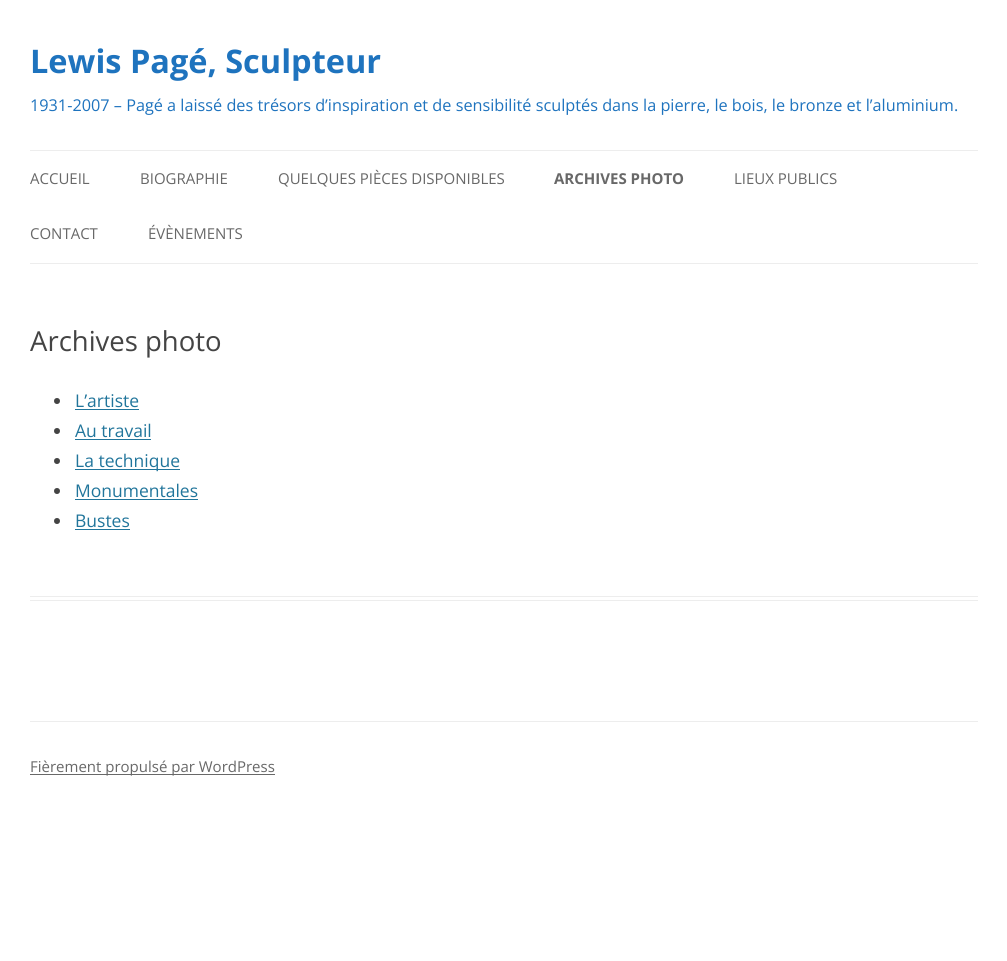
import math
import cairo


def draw(ctx):
	ctx.set_source_rgb(1, 1, 1)
	ctx.paint()
	ctx.select_font_face('Open Sans', cairo.FONT_SLANT_NORMAL, cairo.FONT_WEIGHT_BOLD)
	ctx.set_font_size(32.5)
	ctx.set_source_rgb(0.118, 0.451, 0.745)
	ctx.move_to(30, 73)
	ctx.show_text('Lewis Pagé, Sculpteur')
	ctx.select_font_face('Open Sans')
	ctx.set_font_size(16.25)
	ctx.move_to(30, 111)
	ctx.show_text('1931-2007 – Pagé a laissé des trésors d’inspiration et de sensibilité sculptés dans la pierre, le bois, le bronze et l’aluminium.')
	ctx.set_source_rgb(0.929, 0.929, 0.929)
	ctx.rectangle(30, 150, 948, 1)
	ctx.fill()
	ctx.rectangle(30, 263, 948, 1)
	ctx.fill()
	ctx.set_font_size(15)
	ctx.set_source_rgb(0.408, 0.408, 0.408)
	for x, y, s in [
		(30, 184, 'ACCUEIL'),
		(140, 184, 'BIOGRAPHIE'),
		(278, 184, 'QUELQUES PIÈCES DISPONIBLES'),
	]:
		ctx.move_to(x, y)
		ctx.show_text(s)
	ctx.select_font_face('Open Sans', cairo.FONT_SLANT_NORMAL, cairo.FONT_WEIGHT_BOLD)
	ctx.move_to(554, 184)
	ctx.show_text('ARCHIVES PHOTO')
	ctx.select_font_face('Open Sans')
	for x, y, s in [
		(734, 184, 'LIEUX PUBLICS'),
		(30, 239, 'CONTACT'),
		(148, 239, 'ÉVÈNEMENTS'),
	]:
		ctx.move_to(x, y)
		ctx.show_text(s)
	ctx.set_source_rgb(0.929, 0.929, 0.929)
	ctx.rectangle(30, 596, 948, 1)
	ctx.fill()
	ctx.rectangle(30, 600, 948, 1)
	ctx.fill()
	ctx.set_font_size(27.5)
	ctx.set_source_rgb(0.267, 0.267, 0.267)
	ctx.move_to(30, 351)
	ctx.show_text('Archives photo')
	ctx.new_path()
	ctx.arc(57, 401, 3, 0, 2 * math.pi)
	ctx.fill()
	ctx.set_font_size(17.5)
	ctx.set_source_rgb(0.129, 0.459, 0.608)
	ctx.move_to(75, 407)
	ctx.show_text('L’artiste')
	ctx.rectangle(75, 409, 64, 1)
	ctx.fill()
	ctx.set_source_rgb(0.267, 0.267, 0.267)
	ctx.arc(57, 431, 3, 0, 2 * math.pi)
	ctx.fill()
	ctx.set_source_rgb(0.129, 0.459, 0.608)
	ctx.move_to(75, 437)
	ctx.show_text('Au travail')
	ctx.rectangle(75, 439, 76, 1)
	ctx.fill()
	ctx.set_source_rgb(0.267, 0.267, 0.267)
	ctx.arc(57, 461, 3, 0, 2 * math.pi)
	ctx.fill()
	ctx.set_source_rgb(0.129, 0.459, 0.608)
	ctx.rectangle(75, 469, 105, 1)
	ctx.fill()
	ctx.move_to(75, 467)
	ctx.show_text('La technique')
	ctx.set_source_rgb(0.267, 0.267, 0.267)
	ctx.new_path()
	ctx.arc(57, 491, 3, 0, 2 * math.pi)
	ctx.fill()
	ctx.set_source_rgb(0.129, 0.459, 0.608)
	ctx.move_to(75, 497)
	ctx.show_text('Monumentales')
	ctx.rectangle(75, 499, 123, 1)
	ctx.fill()
	ctx.set_source_rgb(0.267, 0.267, 0.267)
	ctx.arc(57, 521, 3, 0, 2 * math.pi)
	ctx.fill()
	ctx.set_source_rgb(0.129, 0.459, 0.608)
	ctx.move_to(75, 527)
	ctx.show_text('Bustes')
	ctx.rectangle(75, 529, 55, 1)
	ctx.fill()
	ctx.set_source_rgb(0.929, 0.929, 0.929)
	ctx.rectangle(30, 721, 948, 1)
	ctx.fill()
	ctx.set_source_rgb(0.408, 0.408, 0.408)
	ctx.rectangle(30, 774, 245, 1)
	ctx.fill()
	ctx.set_font_size(15)
	ctx.move_to(30, 772)
	ctx.show_text('Fièrement propulsé par WordPress')


surface = cairo.ImageSurface(cairo.FORMAT_RGB24, 1007, 961)
ctx = cairo.Context(surface)
options = cairo.FontOptions()
options.set_hint_metrics(cairo.HINT_METRICS_OFF)
options.set_hint_style(cairo.HINT_STYLE_NONE)
ctx.set_font_options(options)
ctx.set_miter_limit(4)
draw(ctx)
surface.write_to_png('image.png')
